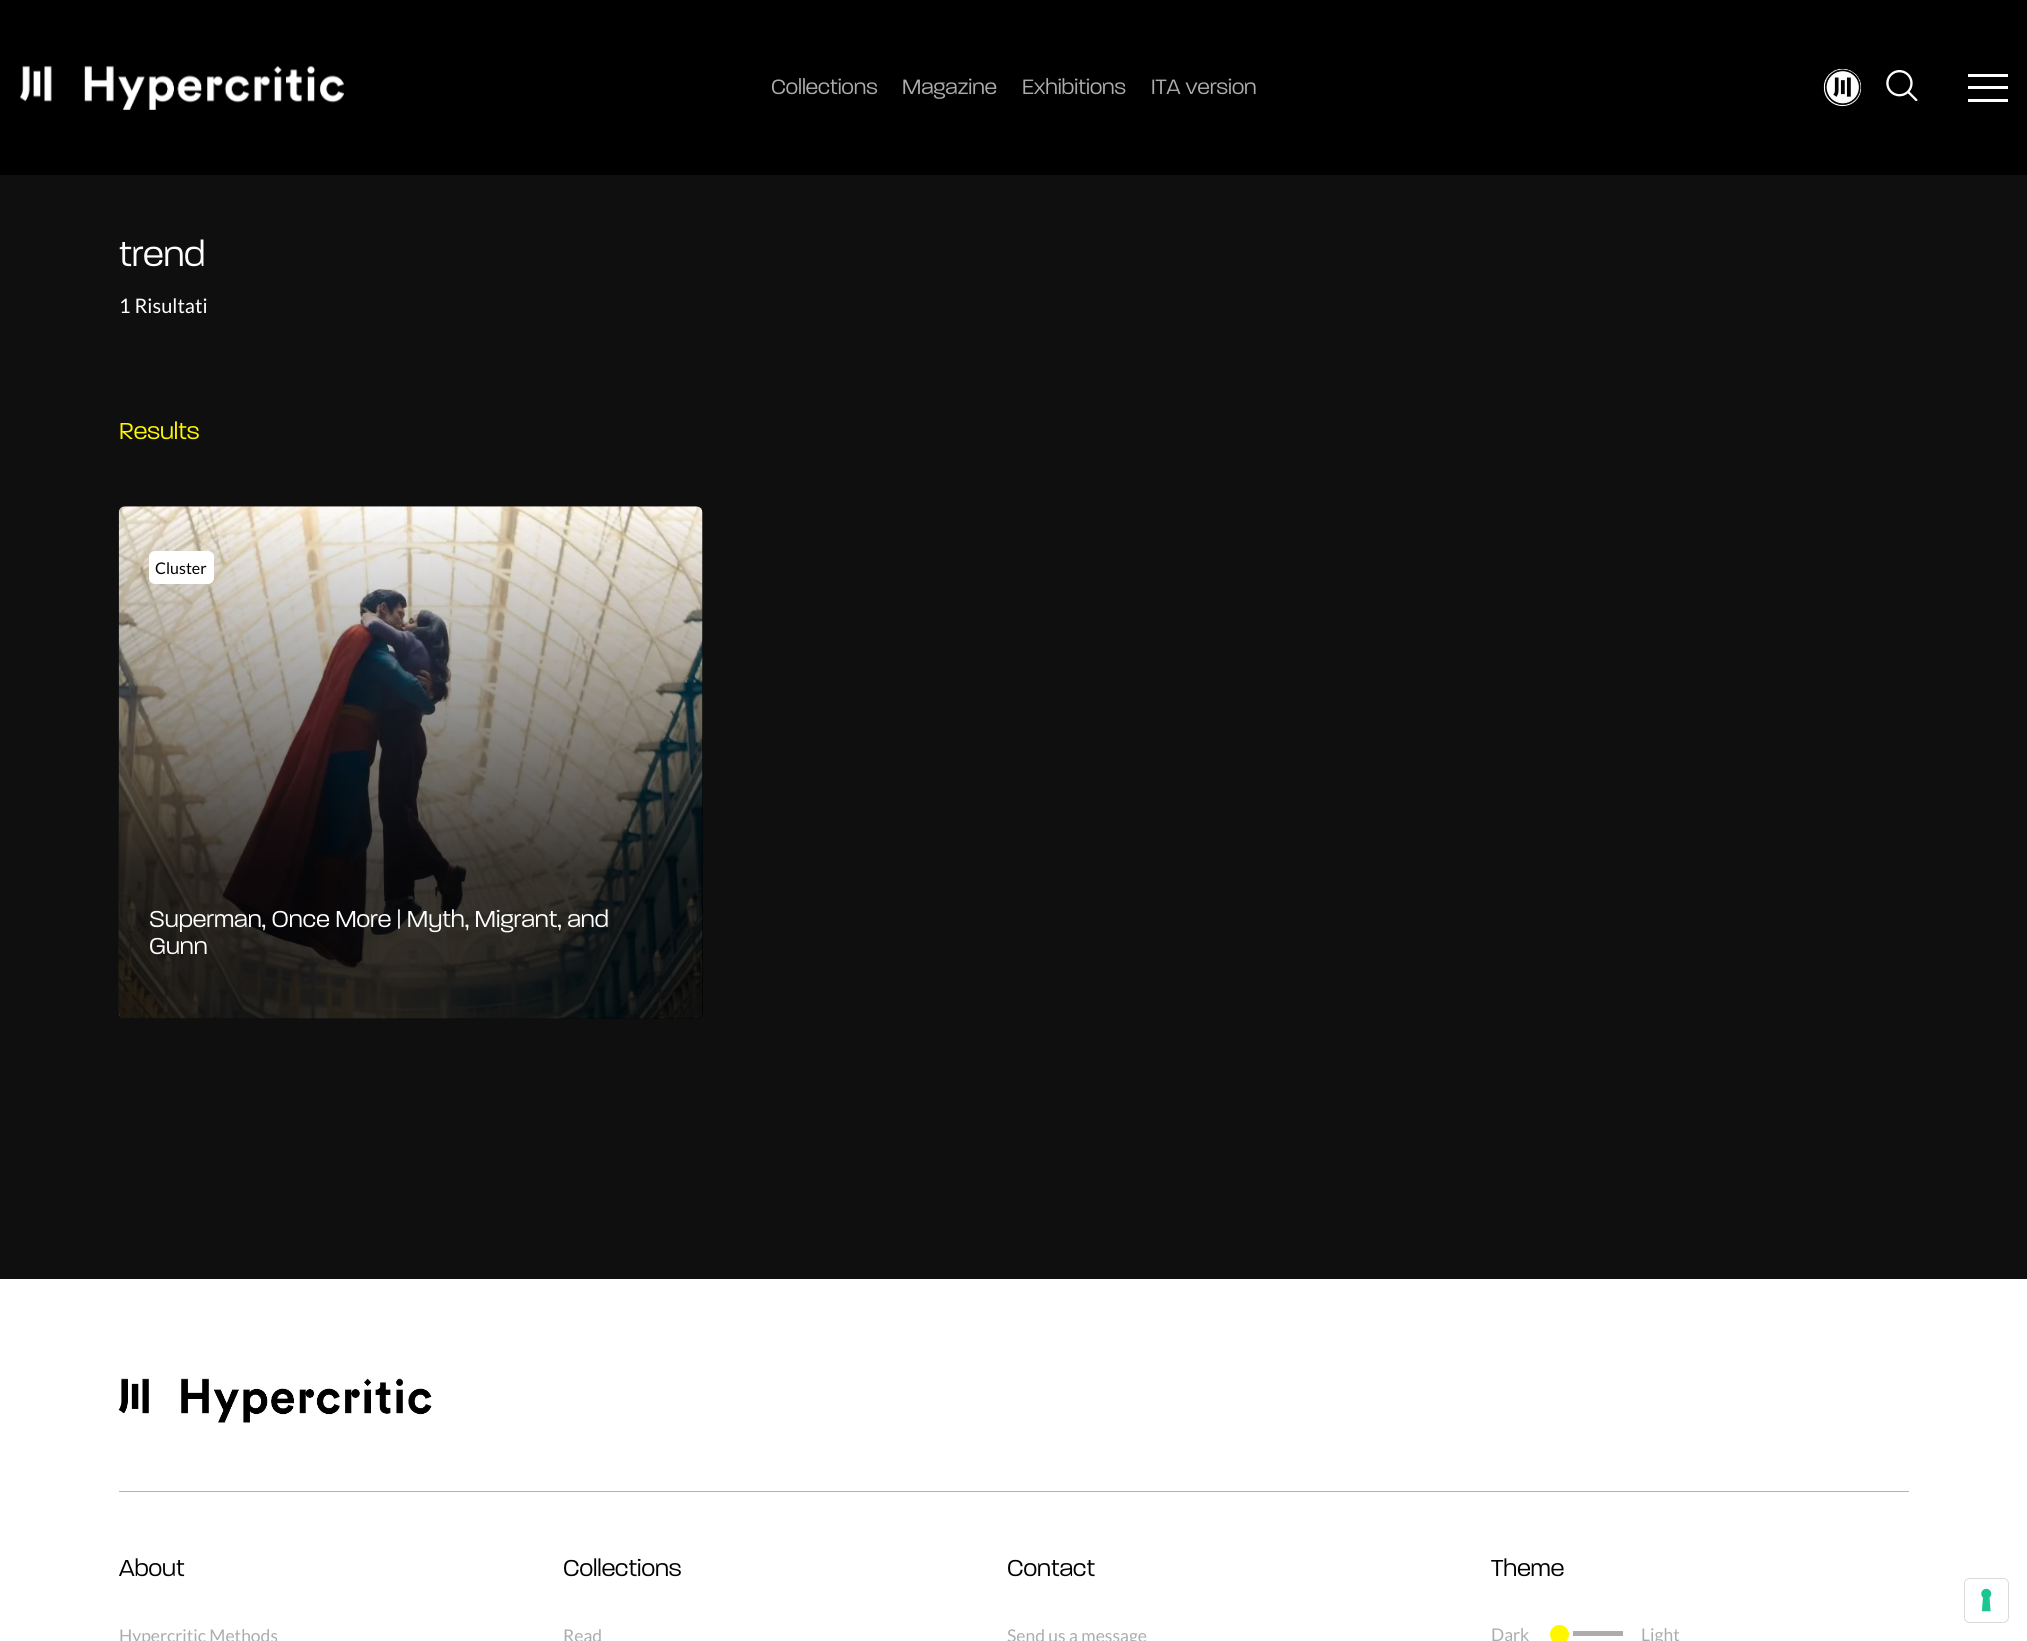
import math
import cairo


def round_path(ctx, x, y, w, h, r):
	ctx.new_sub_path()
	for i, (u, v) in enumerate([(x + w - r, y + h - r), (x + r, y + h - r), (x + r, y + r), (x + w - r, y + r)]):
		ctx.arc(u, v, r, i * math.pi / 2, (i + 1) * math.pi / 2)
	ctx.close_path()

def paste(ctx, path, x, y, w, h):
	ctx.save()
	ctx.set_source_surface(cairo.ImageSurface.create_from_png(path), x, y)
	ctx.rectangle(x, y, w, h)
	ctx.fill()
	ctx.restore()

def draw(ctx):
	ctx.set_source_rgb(0.059, 0.059, 0.059)
	ctx.paint()
	ctx.set_source_rgb(0, 0, 0)
	ctx.rectangle(0, 0, 2027, 175)
	ctx.fill()
	paste(ctx, 'media/1.png', 20, 65, 324, 45)
	ctx.select_font_face('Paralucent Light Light')
	ctx.set_font_size(22.5)
	ctx.set_source_rgb(0.675, 0.675, 0.675)
	for x, y, s in [
		(771, 94, 'Collections'),
		(902, 94, 'Magazine'),
		(1022, 94, 'Exhibitions'),
		(1151, 94, 'ITA version'),
	]:
		ctx.move_to(x, y)
		ctx.show_text(s)
	paste(ctx, 'media/2.png', 1823, 68, 39, 39)
	paste(ctx, 'media/3.png', 1886, 70, 32, 31)
	ctx.set_source_rgb(1, 1, 1)
	ctx.rectangle(1968, 86, 40, 3)
	ctx.rectangle(1968, 74, 40, 3)
	ctx.rectangle(1968, 99, 40, 3)
	ctx.fill()
	ctx.set_font_size(37.5)
	ctx.move_to(119, 266)
	ctx.show_text('trend')
	ctx.select_font_face('Lato')
	ctx.set_font_size(20)
	ctx.move_to(119, 313)
	ctx.show_text('1 Risultati')
	ctx.select_font_face('Paralucent Light Light')
	ctx.set_font_size(25)
	ctx.set_source_rgb(1, 0.961, 0)
	ctx.move_to(119, 439)
	ctx.show_text('Results')
	paste(ctx, 'media/4.png', 118, 506, 585, 513)
	gradient = cairo.LinearGradient(411, 506, 411, 1019)
	gradient.add_color_stop_rgba(0, 0, 0, 0, 0)
	gradient.add_color_stop_rgba(0.71, 0, 0, 0, 0.77)
	gradient.add_color_stop_rgba(1, 0, 0, 0, 0.8)
	ctx.set_source(gradient)
	round_path(ctx, 119, 506, 584, 513, 6)
	ctx.fill()
	ctx.set_source_rgb(1, 1, 1)
	round_path(ctx, 149, 551, 65, 33, 6)
	ctx.fill()
	ctx.select_font_face('Lato')
	ctx.set_font_size(16)
	ctx.set_source_rgb(0, 0, 0)
	ctx.move_to(155, 574)
	ctx.show_text('Cluster')
	ctx.select_font_face('Paralucent Light Light')
	ctx.set_font_size(25)
	ctx.set_source_rgb(1, 1, 1)
	ctx.move_to(149, 927)
	ctx.show_text('Superman, Once More | Myth, Migrant, and')
	ctx.move_to(149, 954)
	ctx.show_text('Gunn')
	ctx.rectangle(0, 1279, 2027, 362)
	ctx.fill()
	ctx.set_source_rgb(0.702, 0.702, 0.702)
	ctx.rectangle(119, 1491, 1790, 1)
	ctx.fill()
	paste(ctx, 'media/5.png', 118, 1378, 314, 45)
	ctx.set_source_rgb(0, 0, 0)
	ctx.move_to(119, 1576)
	ctx.show_text('About')
	ctx.select_font_face('Lato')
	ctx.set_font_size(17.5)
	ctx.set_source_rgb(0.675, 0.675, 0.675)
	ctx.move_to(119, 1642)
	ctx.show_text('Hypercritic Methods')
	ctx.select_font_face('Paralucent Light Light')
	ctx.set_font_size(25)
	ctx.set_source_rgb(0, 0, 0)
	ctx.move_to(563, 1576)
	ctx.show_text('Collections')
	ctx.select_font_face('Lato')
	ctx.set_font_size(17.5)
	ctx.set_source_rgb(0.675, 0.675, 0.675)
	ctx.move_to(563, 1642)
	ctx.show_text('Read')
	ctx.select_font_face('Paralucent Light Light')
	ctx.set_font_size(25)
	ctx.set_source_rgb(0, 0, 0)
	ctx.move_to(1007, 1576)
	ctx.show_text('Contact')
	ctx.select_font_face('Lato')
	ctx.set_font_size(17.5)
	ctx.set_source_rgb(0.675, 0.675, 0.675)
	ctx.move_to(1007, 1642)
	ctx.show_text('Send us a message')
	ctx.select_font_face('Paralucent Light Light')
	ctx.set_font_size(25)
	ctx.set_source_rgb(0, 0, 0)
	ctx.move_to(1491, 1576)
	ctx.show_text('Theme')
	ctx.select_font_face('Lato')
	ctx.set_font_size(17.5)
	ctx.set_source_rgb(0.675, 0.675, 0.675)
	ctx.move_to(1491, 1641)
	ctx.show_text('Dark')
	ctx.set_source_rgb(1, 0.961, 0)
	ctx.new_path()
	ctx.arc(1559.5, 1634.5, 9.5, 0, 2 * math.pi)
	ctx.fill()
	ctx.set_source_rgb(0.675, 0.675, 0.675)
	ctx.rectangle(1573, 1631, 50, 5)
	ctx.fill()
	ctx.move_to(1641, 1641)
	ctx.show_text('Light')
	round_path(ctx, 1964.5, 1578.5, 44, 44, 5.5)
	ctx.set_source_rgb(0.851, 0.851, 0.851)
	ctx.set_line_width(1)
	ctx.stroke()
	ctx.set_source_rgb(1, 1, 1)
	round_path(ctx, 1965, 1579, 43, 42, 5)
	ctx.fill()
	paste(ctx, 'media/6.png', 1981, 1588, 11, 24)


surface = cairo.ImageSurface(cairo.FORMAT_RGB24, 2027, 1641)
ctx = cairo.Context(surface)
options = cairo.FontOptions()
options.set_hint_metrics(cairo.HINT_METRICS_OFF)
options.set_hint_style(cairo.HINT_STYLE_NONE)
ctx.set_font_options(options)
ctx.set_miter_limit(4)
draw(ctx)
surface.write_to_png('image.png')
